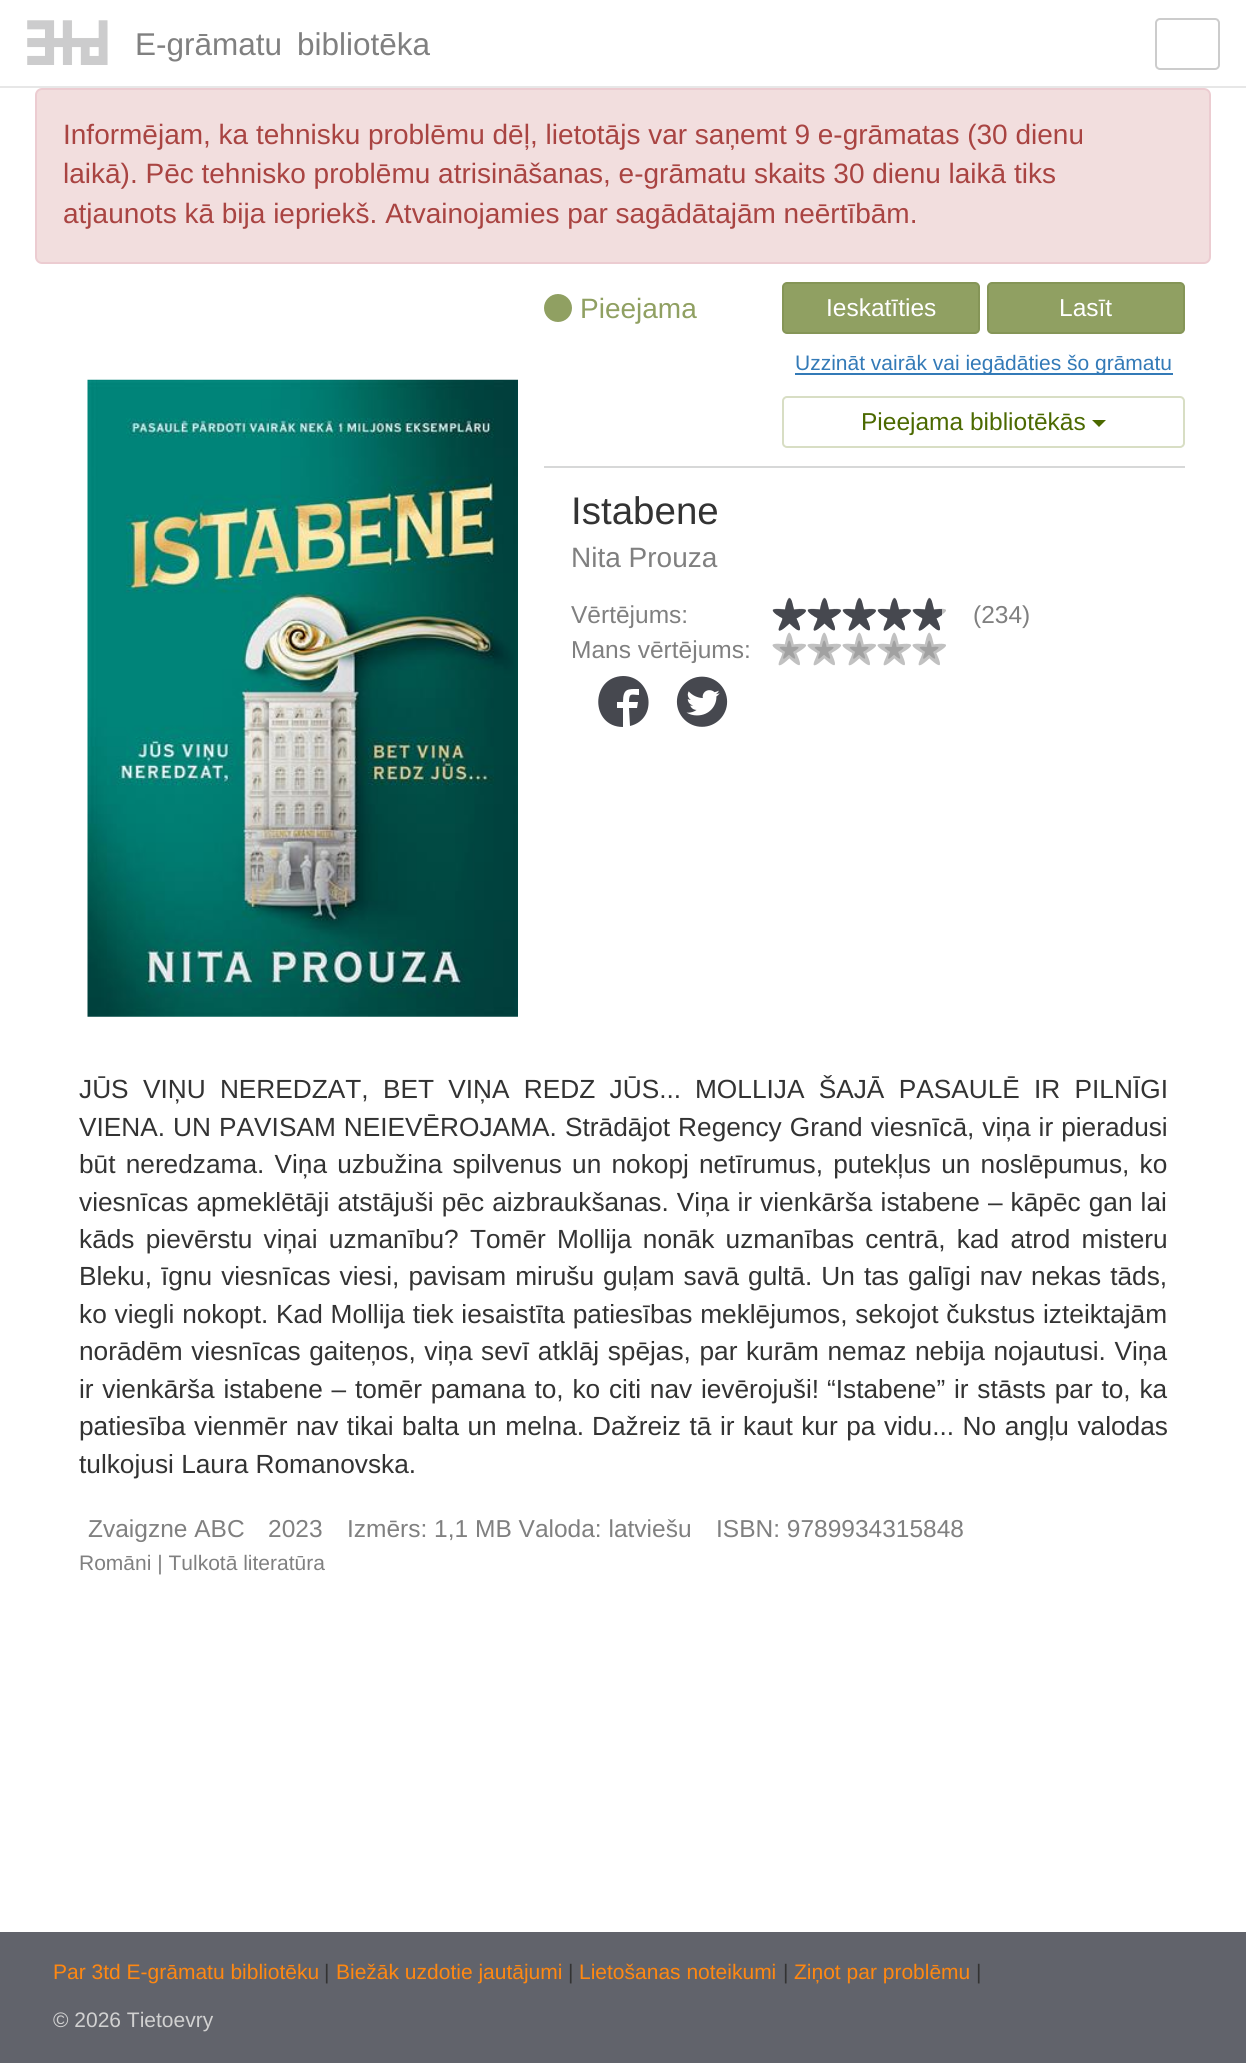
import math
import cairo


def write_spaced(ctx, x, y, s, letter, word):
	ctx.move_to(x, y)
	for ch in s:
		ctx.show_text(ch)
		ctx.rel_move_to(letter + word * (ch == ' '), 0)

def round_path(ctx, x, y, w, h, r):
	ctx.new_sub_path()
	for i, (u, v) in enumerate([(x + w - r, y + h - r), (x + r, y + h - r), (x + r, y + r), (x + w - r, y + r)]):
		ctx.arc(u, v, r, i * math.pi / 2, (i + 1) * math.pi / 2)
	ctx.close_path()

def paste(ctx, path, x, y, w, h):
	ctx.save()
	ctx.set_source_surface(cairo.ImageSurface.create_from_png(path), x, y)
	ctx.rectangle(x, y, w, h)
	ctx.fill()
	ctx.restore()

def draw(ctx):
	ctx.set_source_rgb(1, 1, 1)
	ctx.paint()
	ctx.set_source_rgb(0.906, 0.906, 0.906)
	ctx.rectangle(0, 86, 1246, 2)
	ctx.fill()
	paste(ctx, 'media/1.png', 27, 20, 81, 45)
	ctx.select_font_face('Liberation Sans')
	ctx.set_font_size(31.5)
	ctx.set_source_rgb(0.502, 0.502, 0.502)
	ctx.move_to(135, 55)
	ctx.show_text('E-grāmatu')
	ctx.move_to(297, 55)
	ctx.show_text('bibliotēka')
	round_path(ctx, 1156, 19, 63, 50, 4)
	ctx.set_source_rgb(0.8, 0.8, 0.8)
	ctx.stroke()
	ctx.set_source_rgb(0.949, 0.871, 0.871)
	round_path(ctx, 36, 89, 1174, 174, 6)
	ctx.fill_preserve()
	ctx.set_source_rgb(0.922, 0.8, 0.82)
	ctx.stroke()
	ctx.set_font_size(28)
	ctx.set_source_rgb(0.663, 0.267, 0.259)
	for x, y, s in [
		(63, 144, 'Informējam, ka tehnisku problēmu dēļ, lietotājs var saņemt 9 e-grāmatas (30 dienu'),
		(63, 183, 'laikā). Pēc tehnisko problēmu atrisināšanas, e-grāmatu skaits 30 dienu laikā tiks'),
		(63, 223, 'atjaunots kā bija iepriekš. Atvainojamies par sagādātajām neērtībām.'),
	]:
		ctx.move_to(x, y)
		ctx.show_text(s)
	paste(ctx, 'media/2.png', 87, 379, 431, 638)
	ctx.set_source_rgb(0.843, 0.847, 0.847)
	ctx.rectangle(544, 466, 641, 2)
	ctx.fill()
	ctx.set_source_rgb(0.565, 0.627, 0.384)
	ctx.arc(558, 308, 14, 0, 2 * math.pi)
	ctx.fill()
	ctx.move_to(580, 318)
	ctx.show_text('Pieejama')
	round_path(ctx, 783, 283, 196, 50, 4)
	ctx.fill_preserve()
	ctx.set_source_rgb(0.522, 0.584, 0.341)
	ctx.stroke()
	ctx.set_font_size(24.5)
	ctx.set_source_rgb(1, 1, 1)
	ctx.move_to(826, 316)
	ctx.show_text('Ieskatīties')
	ctx.set_source_rgb(0.565, 0.627, 0.384)
	round_path(ctx, 988, 283, 196, 50, 4)
	ctx.fill_preserve()
	ctx.set_source_rgb(0.522, 0.584, 0.341)
	ctx.stroke()
	ctx.set_source_rgb(1, 1, 1)
	ctx.move_to(1059, 316)
	ctx.show_text('Lasīt')
	ctx.set_source_rgb(0.2, 0.478, 0.718)
	ctx.rectangle(795, 373, 378, 2)
	ctx.fill()
	ctx.set_font_size(21)
	ctx.move_to(795, 370)
	ctx.show_text('Uzzināt vairāk vai iegādāties šo grāmatu')
	round_path(ctx, 783, 397, 401, 50, 4)
	ctx.set_source_rgb(0.847, 0.871, 0.769)
	ctx.stroke()
	ctx.set_font_size(24.5)
	ctx.set_source_rgb(0.294, 0.412, 0)
	ctx.move_to(861, 430)
	ctx.show_text('Pieejama bibliotēkās')
	ctx.new_path()
	ctx.move_to(1092, 420)
	ctx.line_to(1106, 420)
	ctx.line_to(1099, 427)
	ctx.close_path()
	ctx.fill()
	ctx.set_font_size(38.5)
	ctx.set_source_rgb(0.2, 0.2, 0.2)
	ctx.move_to(571, 524)
	ctx.show_text('Istabene')
	ctx.set_font_size(28)
	ctx.set_source_rgb(0.502, 0.502, 0.502)
	ctx.move_to(571, 567)
	ctx.show_text('Nita Prouza')
	ctx.set_font_size(24.5)
	ctx.move_to(571, 623)
	ctx.show_text('Vērtējums:')
	paste(ctx, 'media/3.png', 772, 597, 34, 34)
	paste(ctx, 'media/3.png', 807, 597, 34, 34)
	paste(ctx, 'media/3.png', 842, 597, 34, 34)
	paste(ctx, 'media/3.png', 877, 597, 34, 34)
	paste(ctx, 'media/3.png', 912, 597, 34, 34)
	ctx.set_source_rgb(0.275, 0.282, 0.31)
	ctx.new_path()
	ctx.move_to(785, 609.5)
	ctx.curve_to(784.5, 609.5, 773.5, 608, 773, 610)
	ctx.curve_to(772, 612.5, 780.5, 617.5, 782, 618)
	ctx.curve_to(784, 619, 777, 629, 779, 630.5)
	ctx.curve_to(781, 632, 789.5, 623.5, 789.5, 623.5)
	ctx.curve_to(800.5, 634.5, 803, 632, 796.5, 618.5)
	ctx.curve_to(809, 611.5, 810, 607.5, 794, 609.5)
	ctx.line_to(792, 601.5)
	ctx.curve_to(788.5, 591.5, 785.5, 606.5, 785, 609.5)
	ctx.fill()
	ctx.new_path()
	ctx.move_to(820, 609.5)
	ctx.curve_to(819.5, 609.5, 808.5, 608, 808, 610)
	ctx.curve_to(807, 612.5, 815.5, 617.5, 817, 618)
	ctx.curve_to(819, 619, 812, 629, 814, 630.5)
	ctx.curve_to(816, 632, 824.5, 623.5, 824.5, 623.5)
	ctx.curve_to(835.5, 634.5, 838, 632, 831.5, 618.5)
	ctx.curve_to(844, 611.5, 845, 607.5, 829, 609.5)
	ctx.line_to(827, 601.5)
	ctx.curve_to(823.5, 591.5, 820.5, 606.5, 820, 609.5)
	ctx.fill()
	ctx.new_path()
	ctx.move_to(855, 609.5)
	ctx.curve_to(854.5, 609.5, 843.5, 608, 843, 610)
	ctx.curve_to(842, 612.5, 850.5, 617.5, 852, 618)
	ctx.curve_to(854, 619, 847, 629, 849, 630.5)
	ctx.curve_to(851, 632, 859.5, 623.5, 859.5, 623.5)
	ctx.curve_to(870.5, 634.5, 873, 632, 866.5, 618.5)
	ctx.curve_to(879, 611.5, 880, 607.5, 864, 609.5)
	ctx.line_to(862, 601.5)
	ctx.curve_to(858.5, 591.5, 855.5, 606.5, 855, 609.5)
	ctx.fill()
	ctx.new_path()
	ctx.move_to(890, 609.5)
	ctx.curve_to(889.5, 609.5, 878.5, 608, 878, 610)
	ctx.curve_to(877, 612.5, 885.5, 617.5, 887, 618)
	ctx.curve_to(889, 619, 882, 629, 884, 630.5)
	ctx.curve_to(886, 632, 894.5, 623.5, 894.5, 623.5)
	ctx.curve_to(905.5, 634.5, 908, 632, 901.5, 618.5)
	ctx.curve_to(914, 611.5, 915, 607.5, 899, 609.5)
	ctx.line_to(897, 601.5)
	ctx.curve_to(893.5, 591.5, 890.5, 606.5, 890, 609.5)
	ctx.fill()
	ctx.save()
	ctx.rectangle(912, 597, 30, 35)
	ctx.clip()
	ctx.new_path()
	ctx.move_to(925, 609.5)
	ctx.curve_to(924.5, 609.5, 913.5, 608, 913, 610)
	ctx.curve_to(912, 612.5, 920.5, 617.5, 922, 618)
	ctx.curve_to(924, 619, 917, 629, 919, 630.5)
	ctx.curve_to(921, 632, 929.5, 623.5, 929.5, 623.5)
	ctx.curve_to(940.5, 634.5, 943, 632, 936.5, 618.5)
	ctx.curve_to(949, 611.5, 950, 607.5, 934, 609.5)
	ctx.line_to(932, 601.5)
	ctx.curve_to(928.5, 591.5, 925.5, 606.5, 925, 609.5)
	ctx.fill()
	ctx.restore()
	ctx.set_source_rgb(0.502, 0.502, 0.502)
	ctx.move_to(973, 623)
	ctx.show_text('(234)')
	ctx.move_to(571, 658)
	ctx.show_text('Mans vērtējums:')
	paste(ctx, 'media/3.png', 772, 632, 34, 34)
	paste(ctx, 'media/3.png', 807, 632, 34, 34)
	paste(ctx, 'media/3.png', 842, 632, 34, 34)
	paste(ctx, 'media/3.png', 877, 632, 34, 34)
	paste(ctx, 'media/3.png', 912, 632, 34, 34)
	ctx.set_source_rgb(0.275, 0.282, 0.31)
	ctx.new_path()
	ctx.move_to(623, 676)
	ctx.curve_to(590, 677, 590, 727, 623, 727)
	ctx.line_to(623, 708)
	ctx.line_to(617, 708)
	ctx.line_to(617, 702)
	ctx.line_to(623, 702)
	ctx.curve_to(623, 688, 628, 689, 639, 689)
	ctx.line_to(639, 695)
	ctx.curve_to(632, 695, 629, 692, 629, 702)
	ctx.line_to(638, 702)
	ctx.line_to(637, 708)
	ctx.line_to(629, 708)
	ctx.line_to(630, 726)
	ctx.curve_to(659, 719, 652, 676, 623, 676)
	ctx.close_path()
	ctx.fill()
	paste(ctx, 'media/4.png', 676, 676, 52, 51)
	ctx.set_font_size(26.25)
	ctx.set_source_rgb(0.2, 0.2, 0.2)
	write_spaced(ctx, 79, 1098, 'JŪS VIŅU NEREDZAT, BET VIŅA REDZ JŪS...', 0, 7)
	write_spaced(ctx, 695, 1098, 'MOLLIJA ŠAJĀ PASAULĒ IR PILNĪGI', 0, 7)
	write_spaced(ctx, 79, 1136, 'VIENA. UN PAVISAM NEIEVĒROJAMA.', 0, 0.75)
	write_spaced(ctx, 565, 1136, 'Strādājot Regency Grand viesnīcā, viņa ir pieradusi', 0, 0.75)
	write_spaced(ctx, 79, 1173, 'būt neredzama. Viņa uzbužina spilvenus un nokopj netīrumus, putekļus un noslēpumus, ko', 0, 2.9)
	write_spaced(ctx, 79, 1211, 'viesnīcas apmeklētāji atstājuši pēc aizbraukšanas. Viņa ir vienkārša istabene – kāpēc gan lai', 0, 0.8)
	write_spaced(ctx, 79, 1248, 'kāds pievērstu viņai uzmanību? Tomēr Mollija nonāk uzmanības centrā, kad atrod misteru', 0, 4)
	write_spaced(ctx, 79, 1285, 'Bleku, īgnu viesnīcas viesi, pavisam mirušu guļam savā gultā. Un tas galīgi nav nekas tāds,', 0, 1.75)
	write_spaced(ctx, 79, 1323, 'ko viegli nokopt. Kad Mollija tiek iesaistīta patiesības meklējumos, sekojot čukstus izteiktajām', 0, 0.5)
	write_spaced(ctx, 79, 1360, 'norādēm viesnīcas gaiteņos, viņa sevī atklāj spējas, par kurām nemaz nebija nojautusi. Viņa', 0, 1.3)
	write_spaced(ctx, 79, 1398, 'ir vienkārša istabene – tomēr pamana to, ko citi nav ievērojuši!', 0, 1.5)
	write_spaced(ctx, 827, 1398, '“Istabene” ir stāsts par to, ka', 0, 1.5)
	write_spaced(ctx, 79, 1435, 'patiesība vienmēr nav tikai balta un melna.', 0, 1.25)
	write_spaced(ctx, 592, 1435, 'Dažreiz tā ir kaut kur pa vidu... No angļu valodas', 0, 1.25)
	ctx.move_to(79, 1473)
	ctx.show_text('tulkojusi Laura Romanovska.')
	ctx.set_font_size(24.5)
	ctx.set_source_rgb(0.502, 0.502, 0.502)
	for x, y, s in [
		(88, 1537, 'Zvaigzne ABC'),
		(268, 1537, '2023'),
		(347, 1537, 'Izmērs: 1,1 MB Valoda: latviešu'),
		(716, 1537, 'ISBN: 9789934315848'),
	]:
		ctx.move_to(x, y)
		ctx.show_text(s)
	ctx.set_font_size(21)
	ctx.move_to(79, 1570)
	ctx.show_text('Romāni | Tulkotā literatūra')
	ctx.set_source_rgb(0.38, 0.388, 0.42)
	ctx.rectangle(0, 1932, 1246, 131)
	ctx.fill()
	ctx.set_source_rgb(1, 0.533, 0.067)
	ctx.move_to(53, 1979)
	ctx.show_text('Par 3td E-grāmatu bibliotēku')
	ctx.set_source_rgb(0.2, 0.2, 0.2)
	ctx.move_to(324, 1979)
	ctx.show_text('|')
	ctx.set_source_rgb(1, 0.533, 0.067)
	ctx.move_to(336, 1979)
	ctx.show_text('Biežāk uzdotie jautājumi')
	ctx.set_source_rgb(0.2, 0.2, 0.2)
	ctx.move_to(568, 1979)
	ctx.show_text('|')
	ctx.set_source_rgb(1, 0.533, 0.067)
	ctx.move_to(579, 1979)
	ctx.show_text('Lietošanas noteikumi')
	ctx.set_source_rgb(0.2, 0.2, 0.2)
	ctx.move_to(783, 1979)
	ctx.show_text('|')
	ctx.set_source_rgb(1, 0.533, 0.067)
	ctx.move_to(794, 1979)
	ctx.show_text('Ziņot par problēmu')
	ctx.set_source_rgb(0.2, 0.2, 0.2)
	ctx.move_to(976, 1979)
	ctx.show_text('|')
	ctx.set_source_rgb(0.82, 0.82, 0.82)
	ctx.move_to(53, 2027)
	ctx.show_text('© 2026 Tietoevry')


surface = cairo.ImageSurface(cairo.FORMAT_RGB24, 1246, 2063)
ctx = cairo.Context(surface)
options = cairo.FontOptions()
options.set_hint_metrics(cairo.HINT_METRICS_OFF)
options.set_hint_style(cairo.HINT_STYLE_NONE)
ctx.set_font_options(options)
ctx.set_miter_limit(4)
draw(ctx)
surface.write_to_png('image.png')
